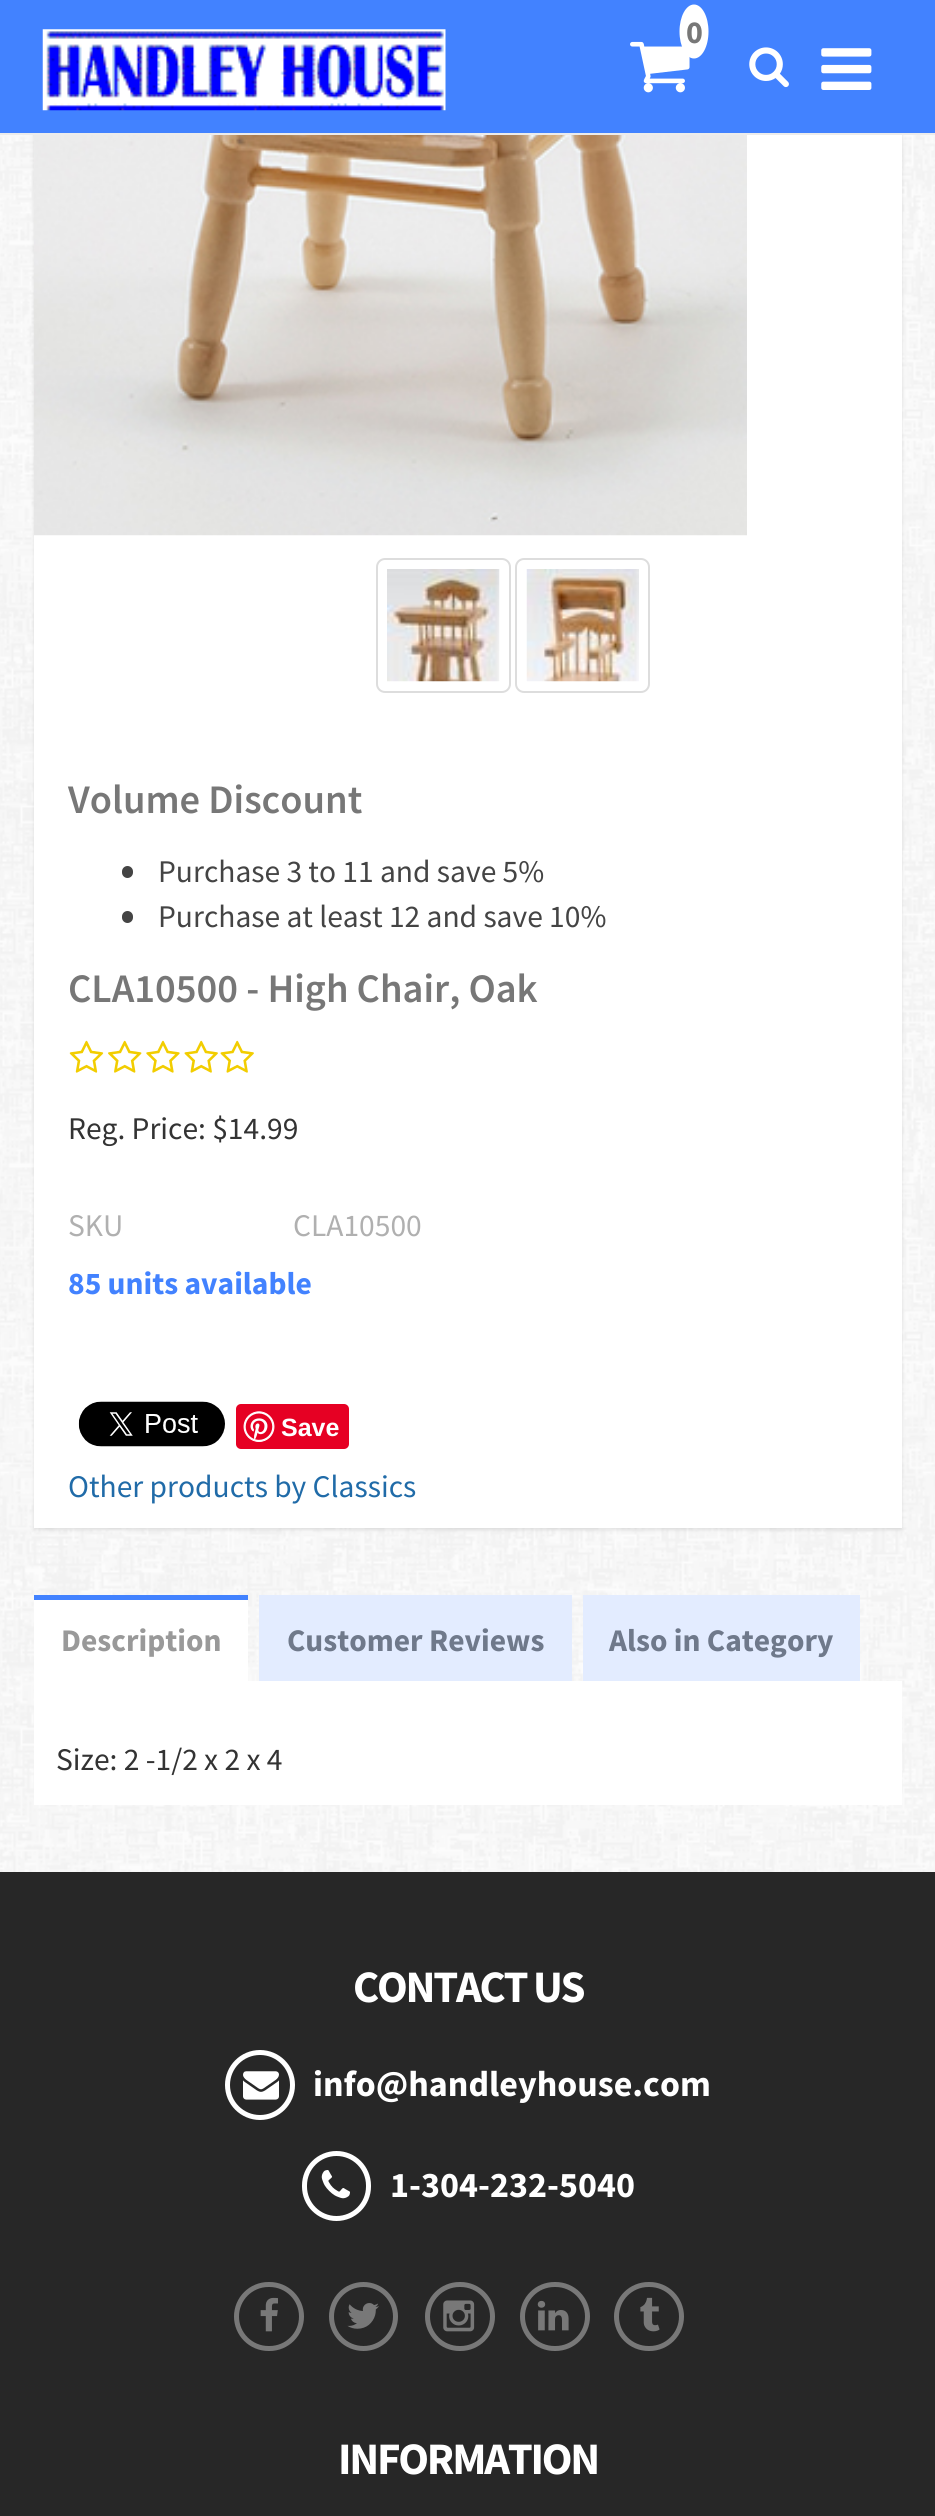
import math
import cairo


def write_spaced(ctx, x, y, s, letter, word):
	ctx.move_to(x, y)
	for ch in s:
		ctx.show_text(ch)
		ctx.rel_move_to(letter + word * (ch == ' '), 0)

def round_path(ctx, x, y, w, h, r):
	ctx.new_sub_path()
	for i, (u, v) in enumerate([(x + w - r, y + h - r), (x + r, y + h - r), (x + r, y + r), (x + w - r, y + r)]):
		ctx.arc(u, v, r, i * math.pi / 2, (i + 1) * math.pi / 2)
	ctx.close_path()

def blur_box(ctx, x, y, w, h, r, blur, alpha):
	ctx.push_group_with_content(cairo.CONTENT_ALPHA)
	ctx.set_operator(cairo.OPERATOR_SOURCE)
	for i in range(15, -16, -2):
		e = blur * i / 6
		if min(w, h) + 2 * e > 0:
			ctx.set_source_rgba(0, 0, 0, alpha * math.erfc((i - 1) / 8.5) / 2)
			round_path(ctx, x - e, y - e, w + 2 * e, h + 2 * e, max(0, min(r + e + blur * .6, min(w, h) / 2 + e)))
			ctx.fill()
	ctx.mask(ctx.pop_group())

def paste(ctx, path, x, y, w, h):
	ctx.save()
	ctx.set_source_surface(cairo.ImageSurface.create_from_png(path), x, y)
	ctx.rectangle(x, y, w, h)
	ctx.fill()
	ctx.restore()

def draw(ctx):
	ctx.set_source_rgb(1, 1, 1)
	ctx.paint()
	paste(ctx, 'media/1.png', 0, 135, 935, 1737)
	ctx.set_source_rgb(0, 0, 0)
	blur_box(ctx, 34, -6, 868, 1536, 0, 2, 0.1)
	ctx.set_source_rgb(0.259, 0.51, 1)
	ctx.rectangle(0, 0, 935, 133)
	ctx.fill()
	ctx.set_source_rgb(0.922, 0.922, 0.922)
	ctx.rectangle(0, 133, 935, 2)
	ctx.fill()
	paste(ctx, 'media/2.png', 42, 29, 404, 82)
	paste(ctx, 'media/3.png', 630, 41, 60, 52)
	ctx.set_source_rgb(1, 1, 1)
	ctx.new_path()
	ctx.move_to(694, 4.5)
	ctx.curve_to(702, 4.5, 708.5, 16.5, 708.5, 31.5)
	ctx.curve_to(708.5, 46.5, 702, 58.5, 694, 58.5)
	ctx.curve_to(686, 58.5, 679.5, 46.5, 679.5, 31.5)
	ctx.curve_to(679.5, 16.5, 686, 4.5, 694, 4.5)
	ctx.close_path()
	ctx.fill()
	ctx.select_font_face('Source Sans Pro', cairo.FONT_SLANT_NORMAL, cairo.FONT_WEIGHT_BOLD)
	ctx.set_font_size(32)
	ctx.set_source_rgb(0.467, 0.467, 0.467)
	ctx.move_to(686, 43)
	ctx.show_text('0')
	paste(ctx, 'media/4.png', 749, 47, 40, 41)
	paste(ctx, 'media/5.png', 821, 48, 51, 42)
	ctx.set_source_rgb(1, 1, 1)
	ctx.rectangle(34, 135, 868, 1393)
	ctx.fill()
	paste(ctx, 'media/6.png', 34, 135, 713, 401)
	round_path(ctx, 377, 559, 133, 133, 8)
	ctx.set_source_rgb(0.867, 0.867, 0.867)
	ctx.stroke()
	paste(ctx, 'media/7.png', 387, 569, 113, 113)
	round_path(ctx, 516, 559, 133, 133, 8)
	ctx.stroke()
	paste(ctx, 'media/8.png', 526, 569, 113, 113)
	ctx.select_font_face('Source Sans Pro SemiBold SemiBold')
	ctx.set_font_size(40.5)
	ctx.set_source_rgb(0.467, 0.467, 0.467)
	ctx.move_to(68, 813)
	ctx.show_text('Volume Discount')
	ctx.set_source_rgb(0.267, 0.267, 0.267)
	round_path(ctx, 122, 866, 11, 12, 5.5)
	ctx.fill()
	ctx.select_font_face('Source Sans Pro')
	ctx.set_font_size(31.5)
	ctx.move_to(158, 882)
	ctx.show_text('Purchase 3 to 11 and save 5%')
	round_path(ctx, 122, 911, 11, 12, 5.5)
	ctx.fill()
	ctx.move_to(158, 927)
	ctx.show_text('Purchase at least 12 and save 10%')
	ctx.select_font_face('Source Sans Pro SemiBold SemiBold')
	ctx.set_font_size(40.5)
	ctx.set_source_rgb(0.467, 0.467, 0.467)
	ctx.move_to(68, 1002)
	ctx.show_text('CLA10500 - High Chair, Oak')
	paste(ctx, 'media/9.png', 69, 1040, 35, 33)
	paste(ctx, 'media/10.png', 108, 1040, 34, 33)
	paste(ctx, 'media/11.png', 146, 1040, 34, 33)
	paste(ctx, 'media/12.png', 184, 1040, 34, 33)
	paste(ctx, 'media/12.png', 220, 1040, 34, 33)
	ctx.select_font_face('Source Sans Pro')
	ctx.set_font_size(31.5)
	ctx.set_source_rgb(0.2, 0.2, 0.2)
	ctx.move_to(68, 1139)
	ctx.show_text('Reg. Price: $14.99')
	ctx.set_source_rgb(0.69, 0.69, 0.69)
	ctx.move_to(68, 1236)
	ctx.show_text('SKU')
	ctx.move_to(293, 1236)
	ctx.show_text('CLA10500')
	ctx.select_font_face('Source Sans Pro', cairo.FONT_SLANT_NORMAL, cairo.FONT_WEIGHT_BOLD)
	ctx.set_source_rgb(0.259, 0.51, 1)
	ctx.move_to(68, 1294)
	ctx.show_text('85 units available')
	paste(ctx, 'media/13.png', 78, 1401, 147, 46)
	ctx.set_source_rgb(0.902, 0, 0.137)
	round_path(ctx, 236, 1404, 113, 45, 5)
	ctx.fill()
	paste(ctx, 'media/14.png', 243, 1411, 32, 31)
	ctx.select_font_face('Liberation Sans', cairo.FONT_SLANT_NORMAL, cairo.FONT_WEIGHT_BOLD)
	ctx.set_font_size(25)
	ctx.set_source_rgb(1, 1, 1)
	ctx.move_to(281, 1436)
	ctx.show_text('Save')
	ctx.select_font_face('Source Sans Pro')
	ctx.set_font_size(31.5)
	ctx.set_source_rgb(0.125, 0.42, 0.659)
	ctx.move_to(68, 1497)
	ctx.show_text('Other products by Classics')
	ctx.set_source_rgb(1, 1, 1)
	ctx.rectangle(34, 1600, 214, 81)
	ctx.fill()
	ctx.set_source_rgb(0.259, 0.51, 1)
	ctx.rectangle(34, 1595, 214, 5)
	ctx.fill()
	ctx.select_font_face('Source Sans Pro', cairo.FONT_SLANT_NORMAL, cairo.FONT_WEIGHT_BOLD)
	ctx.set_source_rgb(0.6, 0.6, 0.6)
	ctx.move_to(61, 1651)
	ctx.show_text('Description')
	ctx.set_source_rgb(0.89, 0.925, 1)
	ctx.rectangle(259, 1595, 313, 86)
	ctx.fill()
	ctx.set_source_rgb(0.435, 0.475, 0.545)
	ctx.move_to(287, 1651)
	ctx.show_text('Customer Reviews')
	ctx.set_source_rgb(0.89, 0.925, 1)
	ctx.rectangle(583, 1595, 277, 86)
	ctx.fill()
	ctx.set_source_rgb(0.435, 0.475, 0.545)
	ctx.move_to(609, 1651)
	ctx.show_text('Also in Category')
	ctx.set_source_rgb(1, 1, 1)
	ctx.rectangle(34, 1681, 868, 124)
	ctx.fill()
	ctx.select_font_face('Source Sans Pro')
	ctx.set_source_rgb(0.2, 0.2, 0.2)
	ctx.move_to(56, 1770)
	ctx.show_text('Size: 2 -1/2 x 2 x 4')
	ctx.set_source_rgb(0.153, 0.153, 0.153)
	ctx.rectangle(0, 1872, 935, 644)
	ctx.fill()
	ctx.select_font_face('Source Sans Pro', cairo.FONT_SLANT_NORMAL, cairo.FONT_WEIGHT_BOLD)
	ctx.set_font_size(45)
	ctx.set_source_rgb(1, 1, 1)
	write_spaced(ctx, 353, 2002, 'CONTACT US', -2.25, 0)
	ctx.new_path()
	ctx.arc(260, 2085, 32.5, 0, 2 * math.pi)
	ctx.set_line_width(5)
	ctx.stroke()
	paste(ctx, 'media/15.png', 243, 2071, 36, 29)
	ctx.set_font_size(36)
	ctx.move_to(313, 2096)
	ctx.show_text('info@handleyhouse.com')
	round_path(ctx, 304.5, 2153.5, 64, 65, 32)
	ctx.stroke()
	paste(ctx, 'media/16.png', 321, 2170, 29, 29)
	ctx.move_to(390, 2197)
	ctx.show_text('1-304-232-5040')
	round_path(ctx, 236.5, 2284.5, 65, 64, 32)
	ctx.set_source_rgb(0.471, 0.471, 0.471)
	ctx.stroke()
	paste(ctx, 'media/17.png', 260, 2297, 18, 35)
	ctx.arc(363.5, 2316.5, 32, 0, 2 * math.pi)
	ctx.stroke()
	paste(ctx, 'media/18.png', 347, 2303, 32, 26)
	round_path(ctx, 427.5, 2284.5, 65, 64, 32)
	ctx.stroke()
	paste(ctx, 'media/19.png', 443, 2300, 32, 32)
	round_path(ctx, 522.5, 2284.5, 65, 64, 32)
	ctx.stroke()
	paste(ctx, 'media/20.png', 537, 2300, 32, 31)
	round_path(ctx, 616.5, 2284.5, 65, 64, 32)
	ctx.stroke()
	paste(ctx, 'media/21.png', 640, 2297, 20, 35)
	ctx.set_font_size(45)
	ctx.set_source_rgb(1, 1, 1)
	write_spaced(ctx, 338, 2474, 'INFORMATION', -2.25, 0)


surface = cairo.ImageSurface(cairo.FORMAT_RGB24, 935, 2516)
ctx = cairo.Context(surface)
options = cairo.FontOptions()
options.set_hint_metrics(cairo.HINT_METRICS_OFF)
options.set_hint_style(cairo.HINT_STYLE_NONE)
ctx.set_font_options(options)
ctx.set_miter_limit(4)
draw(ctx)
surface.write_to_png('image.png')
